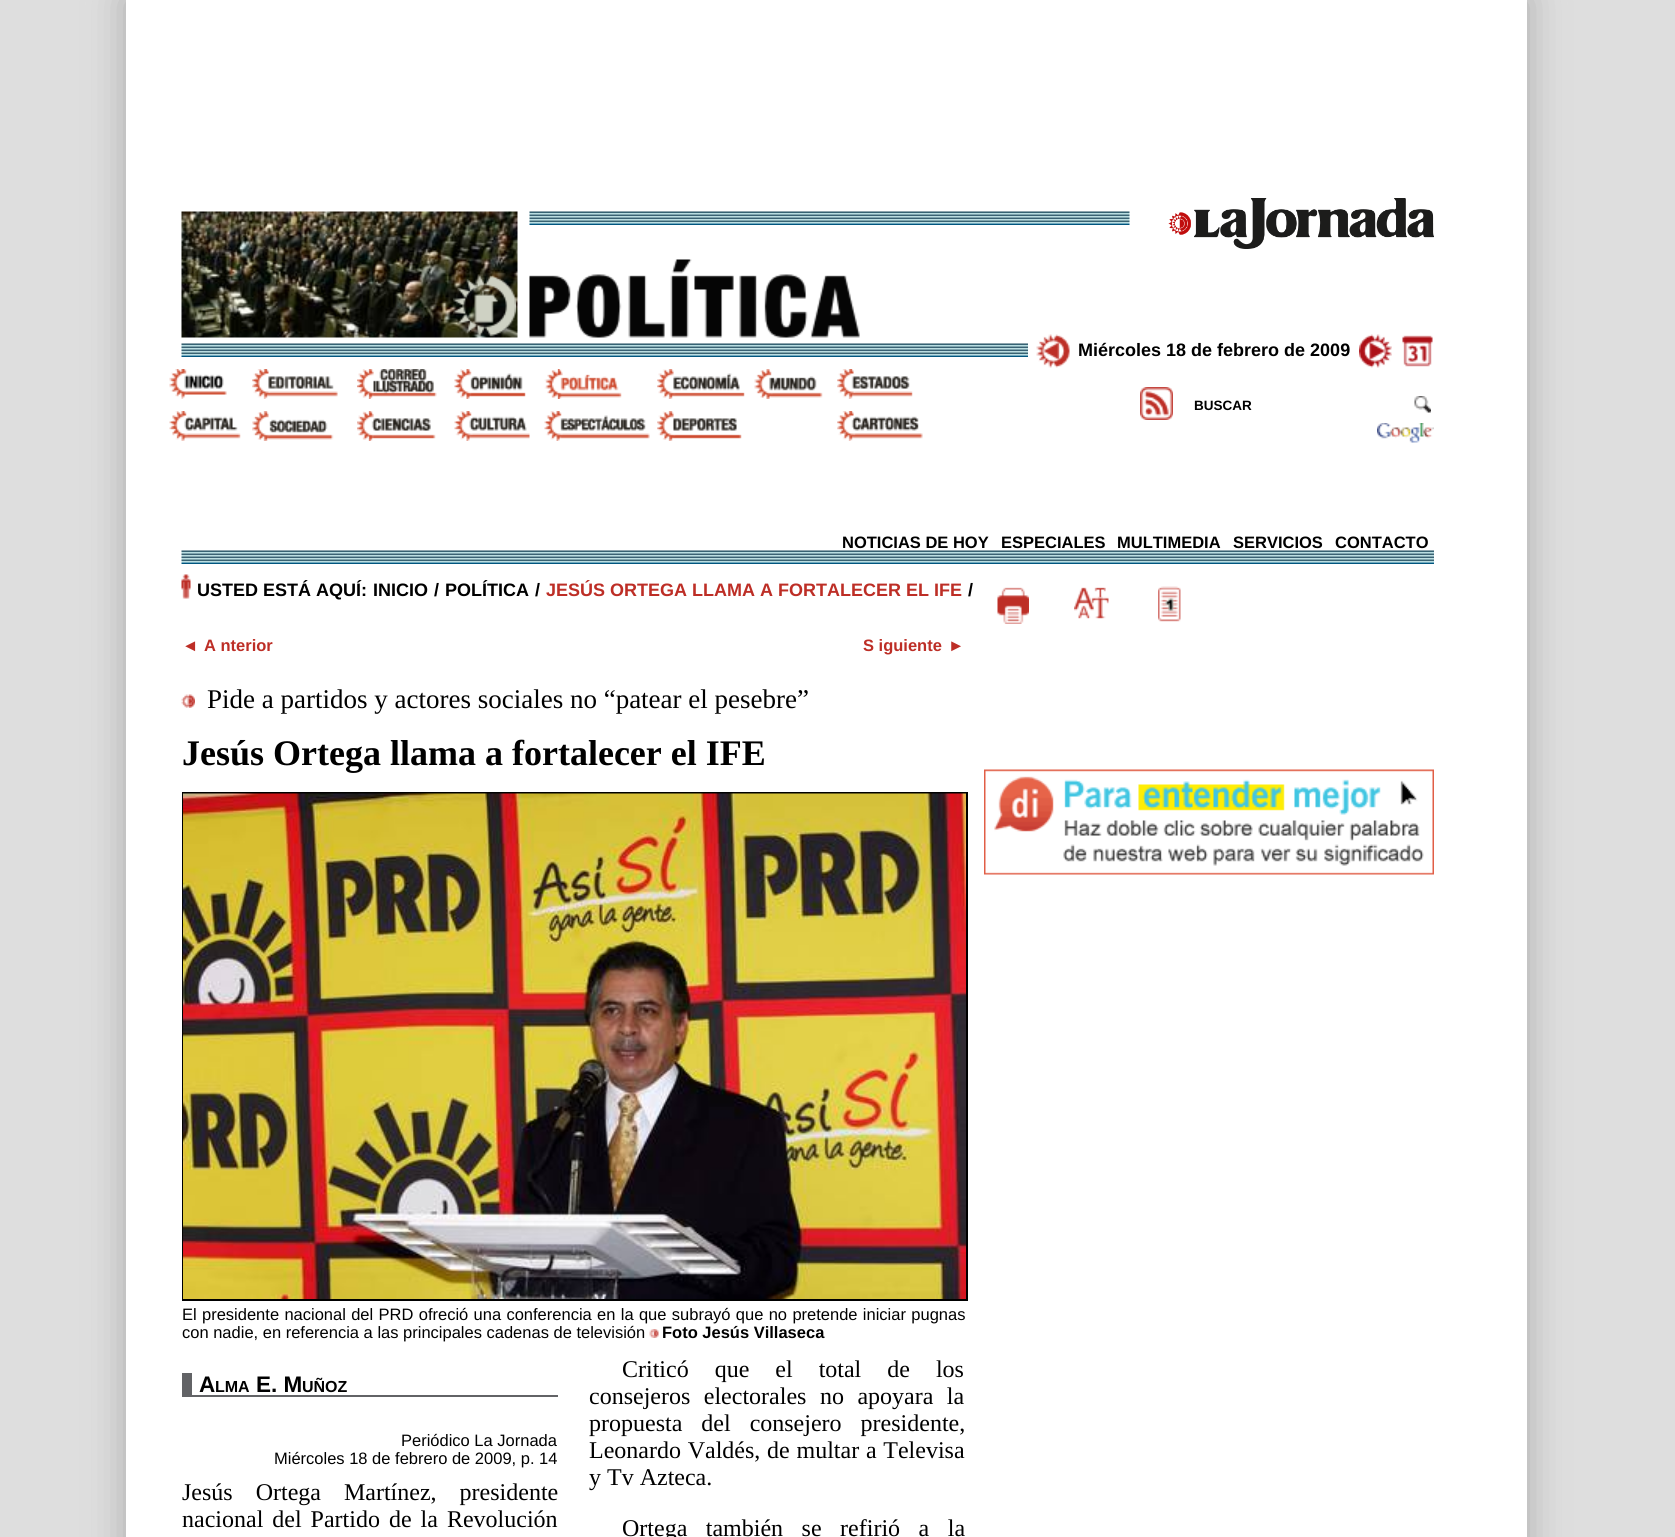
import math
import cairo


def write_spaced(ctx, x, y, s, letter, word):
	ctx.move_to(x, y)
	for ch in s:
		ctx.show_text(ch)
		ctx.rel_move_to(letter + word * (ch == ' '), 0)

def round_path(ctx, x, y, w, h, r):
	ctx.new_sub_path()
	for i, (u, v) in enumerate([(x + w - r, y + h - r), (x + r, y + h - r), (x + r, y + r), (x + w - r, y + r)]):
		ctx.arc(u, v, r, i * math.pi / 2, (i + 1) * math.pi / 2)
	ctx.close_path()

def blur_box(ctx, x, y, w, h, r, blur, alpha):
	ctx.push_group_with_content(cairo.CONTENT_ALPHA)
	ctx.set_operator(cairo.OPERATOR_SOURCE)
	for i in range(15, -16, -2):
		e = blur * i / 6
		if min(w, h) + 2 * e > 0:
			ctx.set_source_rgba(0, 0, 0, alpha * math.erfc((i - 1) / 8.5) / 2)
			round_path(ctx, x - e, y - e, w + 2 * e, h + 2 * e, max(0, min(r + e + blur * .6, min(w, h) / 2 + e)))
			ctx.fill()
	ctx.mask(ctx.pop_group())

def paste(ctx, path, x, y, w, h):
	ctx.save()
	ctx.set_source_surface(cairo.ImageSurface.create_from_png(path), x, y)
	ctx.rectangle(x, y, w, h)
	ctx.fill()
	ctx.restore()

def draw(ctx):
	ctx.set_source_rgb(0.871, 0.871, 0.871)
	ctx.paint()
	ctx.set_source_rgb(0.667, 0.667, 0.667)
	blur_box(ctx, 126, -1, 1401, 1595, 0, 19, 1)
	ctx.set_source_rgb(1, 1, 1)
	ctx.rectangle(126, 0, 1401, 1537)
	ctx.fill()
	paste(ctx, 'media/1.png', 181, 211, 337, 127)
	paste(ctx, 'media/2.png', 529, 211, 601, 14)
	paste(ctx, 'media/3.png', 1168, 198, 266, 51)
	paste(ctx, 'media/4.png', 453, 274, 63, 63)
	paste(ctx, 'media/5.png', 529, 259, 331, 79)
	paste(ctx, 'media/6.png', 181, 343, 847, 14)
	paste(ctx, 'media/7.png', 1036, 334, 34, 34)
	ctx.select_font_face('Liberation Sans', cairo.FONT_SLANT_NORMAL, cairo.FONT_WEIGHT_BOLD)
	ctx.set_font_size(18)
	ctx.set_source_rgb(0, 0, 0)
	ctx.move_to(1078, 356)
	ctx.show_text('Miércoles 18 de febrero de 2009')
	paste(ctx, 'media/8.png', 1359, 334, 33, 34)
	paste(ctx, 'media/9.png', 1402, 335, 31, 32)
	paste(ctx, 'media/10.png', 169, 369, 58, 30)
	paste(ctx, 'media/11.png', 252, 369, 86, 30)
	paste(ctx, 'media/12.png', 357, 369, 80, 30)
	paste(ctx, 'media/13.png', 454, 369, 72, 30)
	paste(ctx, 'media/14.png', 544, 369, 78, 30)
	paste(ctx, 'media/15.png', 657, 369, 88, 30)
	paste(ctx, 'media/16.png', 754, 369, 69, 30)
	paste(ctx, 'media/17.png', 837, 369, 76, 30)
	paste(ctx, 'media/18.png', 169, 411, 72, 30)
	paste(ctx, 'media/19.png', 252, 411, 82, 30)
	paste(ctx, 'media/20.png', 357, 411, 79, 30)
	paste(ctx, 'media/21.png', 454, 411, 76, 30)
	paste(ctx, 'media/22.png', 544, 411, 106, 30)
	paste(ctx, 'media/23.png', 657, 411, 85, 30)
	paste(ctx, 'media/24.png', 837, 411, 86, 30)
	paste(ctx, 'media/25.png', 1140, 387, 33, 33)
	ctx.set_font_size(13.5)
	ctx.move_to(1194, 410)
	ctx.show_text('BUSCAR')
	paste(ctx, 'media/26.png', 1414, 396, 17, 17)
	paste(ctx, 'media/27.png', 1377, 423, 57, 20)
	ctx.set_font_size(16.5)
	for x, y, s in [
		(842, 548, 'NOTICIAS DE HOY'),
		(1001, 548, 'ESPECIALES'),
		(1117, 548, 'MULTIMEDIA'),
		(1233, 548, 'SERVICIOS'),
		(1335, 548, 'CONTACTO'),
	]:
		ctx.move_to(x, y)
		ctx.show_text(s)
	paste(ctx, 'media/28.png', 181, 550, 1253, 14)
	paste(ctx, 'media/29.png', 181, 574, 10, 25)
	ctx.set_font_size(18)
	for x, y, s in [
		(197, 596, 'USTED ESTÁ AQUÍ:'),
		(373, 596, 'INICIO'),
		(434, 596, '/'),
		(445, 596, 'POLÍTICA'),
		(535, 596, '/'),
	]:
		ctx.move_to(x, y)
		ctx.show_text(s)
	ctx.set_source_rgb(0.741, 0.18, 0.149)
	ctx.move_to(546, 596)
	ctx.show_text('JESÚS ORTEGA LLAMA A FORTALECER EL IFE')
	ctx.set_source_rgb(0, 0, 0)
	ctx.move_to(968, 596)
	ctx.show_text('/')
	paste(ctx, 'media/30.png', 997, 587, 32, 37)
	paste(ctx, 'media/31.png', 1074, 587, 35, 32)
	paste(ctx, 'media/32.png', 1158, 586, 23, 36)
	paste(ctx, 'media/33.png', 984, 769, 450, 106)
	ctx.set_font_size(16.5)
	ctx.set_source_rgb(0.741, 0.18, 0.149)
	for x, y, s in [
		(182, 651, '◄'),
		(204, 651, 'A nterior'),
		(863, 651, 'S iguiente'),
		(948, 651, '►'),
	]:
		ctx.move_to(x, y)
		ctx.show_text(s)
	paste(ctx, 'media/34.png', 181, 694, 14, 14)
	ctx.select_font_face('Liberation Serif')
	ctx.set_font_size(27)
	ctx.set_source_rgb(0, 0, 0)
	ctx.move_to(207, 708)
	ctx.show_text('Pide a partidos y actores sociales no “patear el pesebre”')
	ctx.select_font_face('Liberation Serif', cairo.FONT_SLANT_NORMAL, cairo.FONT_WEIGHT_BOLD)
	ctx.set_font_size(36)
	ctx.move_to(182, 765)
	ctx.show_text('Jesús Ortega llama a fortalecer el IFE')
	ctx.rectangle(183, 793, 784, 507)
	ctx.stroke()
	paste(ctx, 'media/35.png', 183, 793, 783, 506)
	ctx.select_font_face('Liberation Sans')
	ctx.set_font_size(16.5)
	write_spaced(ctx, 182, 1320, 'El presidente nacional del PRD ofreció una conferencia en la que subrayó que no pretende iniciar pugnas', 0, 0.75)
	ctx.move_to(182, 1338)
	ctx.show_text('con nadie, en referencia a las principales cadenas de televisión')
	paste(ctx, 'media/36.png', 649, 1329, 10, 9)
	ctx.select_font_face('Liberation Sans', cairo.FONT_SLANT_NORMAL, cairo.FONT_WEIGHT_BOLD)
	ctx.move_to(662, 1338)
	ctx.show_text('Foto Jesús Villaseca')
	ctx.set_source_rgb(0.384, 0.388, 0.4)
	ctx.rectangle(192, 1395, 366, 2)
	ctx.fill()
	ctx.rectangle(182, 1373, 10, 24)
	ctx.fill()
	ctx.set_font_size(22.5)
	ctx.set_source_rgb(0, 0, 0)
	ctx.move_to(199, 1392)
	ctx.show_text('A')
	ctx.set_font_size(16)
	ctx.move_to(215, 1392)
	ctx.show_text('LMA')
	ctx.set_font_size(22.5)
	ctx.move_to(256, 1392)
	ctx.show_text('E. M')
	ctx.set_font_size(16)
	ctx.move_to(302, 1392)
	ctx.show_text('UÑOZ')
	ctx.select_font_face('Liberation Sans')
	ctx.set_font_size(16.5)
	ctx.move_to(401, 1446)
	ctx.show_text('Periódico La Jornada')
	ctx.move_to(274, 1464)
	ctx.show_text('Miércoles 18 de febrero de 2009, p. 14')
	ctx.select_font_face('Liberation Serif')
	ctx.set_font_size(24)
	write_spaced(ctx, 182, 1500, 'Jesús Ortega Martínez, presidente', 0, 17)
	write_spaced(ctx, 182, 1527, 'nacional del Partido de la Revolución', 0, 3)
	write_spaced(ctx, 622, 1377, 'Criticó que el total de los', 0, 20)
	write_spaced(ctx, 589, 1404, 'consejeros electorales no apoyara la', 0, 7.5)
	write_spaced(ctx, 589, 1431, 'propuesta del consejero presidente,', 0, 13)
	write_spaced(ctx, 589, 1458, 'Leonardo Valdés, de multar a Televisa', 0, 0.75)
	ctx.move_to(589, 1485)
	ctx.show_text('y Tv Azteca.')
	write_spaced(ctx, 622, 1536, 'Ortega también se refirió a la', 0, 12.5)


surface = cairo.ImageSurface(cairo.FORMAT_RGB24, 1675, 1537)
ctx = cairo.Context(surface)
options = cairo.FontOptions()
options.set_hint_metrics(cairo.HINT_METRICS_OFF)
options.set_hint_style(cairo.HINT_STYLE_NONE)
ctx.set_font_options(options)
ctx.set_miter_limit(4)
draw(ctx)
surface.write_to_png('image.png')
